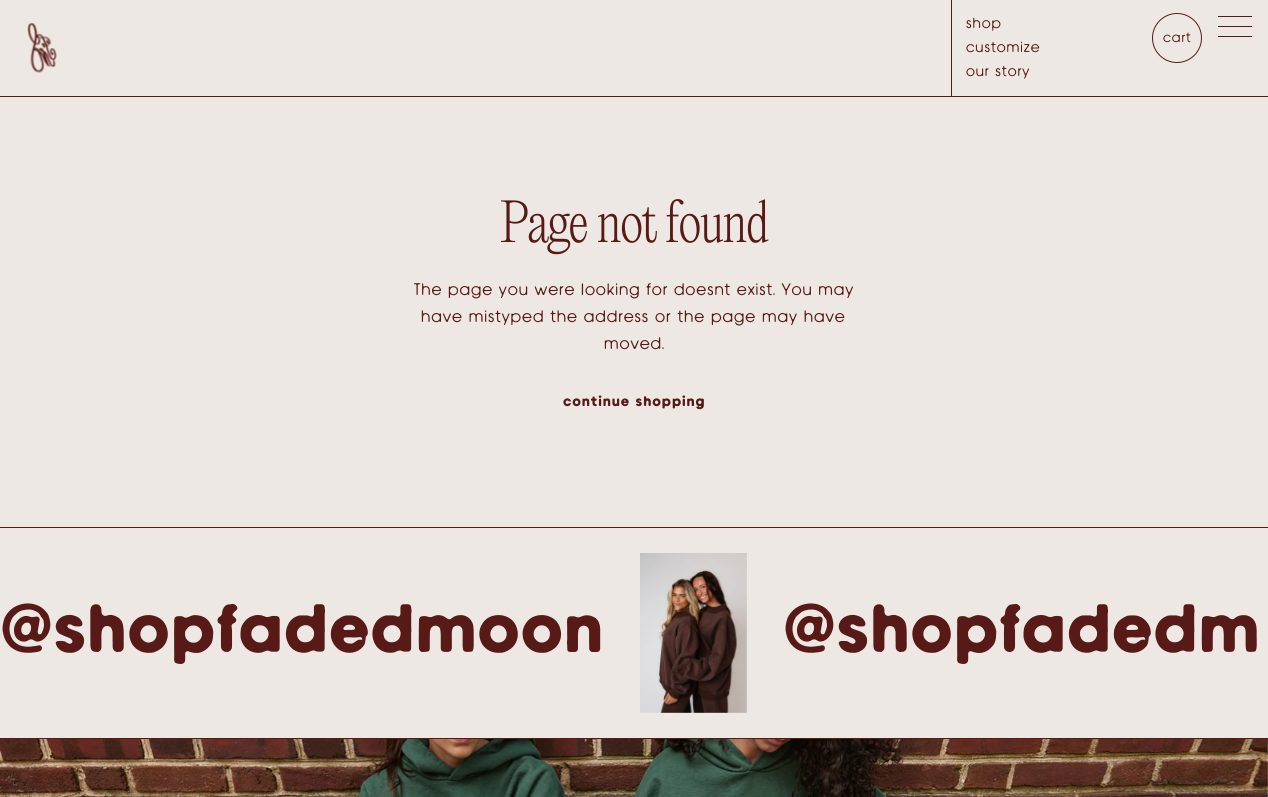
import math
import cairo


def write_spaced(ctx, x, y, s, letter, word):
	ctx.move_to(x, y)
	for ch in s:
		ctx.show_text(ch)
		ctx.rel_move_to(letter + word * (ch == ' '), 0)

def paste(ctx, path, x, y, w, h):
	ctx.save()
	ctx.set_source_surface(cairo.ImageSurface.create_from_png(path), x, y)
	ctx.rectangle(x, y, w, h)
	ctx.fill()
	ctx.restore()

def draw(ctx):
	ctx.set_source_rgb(0.929, 0.91, 0.89)
	ctx.paint()
	ctx.set_source_rgb(0.345, 0.102, 0.09)
	ctx.rectangle(0, 96, 1268, 1)
	ctx.fill()
	ctx.rectangle(951, 0, 1, 96)
	ctx.fill()
	paste(ctx, 'media/1.png', 27, 22, 30, 51)
	ctx.select_font_face('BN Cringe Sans')
	ctx.set_font_size(15)
	for x, y, s in [
		(966, 28, 'shop'),
		(966, 52, 'customize'),
		(966, 76, 'our story'),
	]:
		write_spaced(ctx, x, y, s, 0.9, 0)
	ctx.new_path()
	ctx.arc(1177, 38, 24.5, 0, 2 * math.pi)
	ctx.set_line_width(1)
	ctx.stroke()
	ctx.set_font_size(14)
	write_spaced(ctx, 1163, 42, 'cart', 0.9, 0)
	ctx.rectangle(1218, 16, 34, 1)
	ctx.rectangle(1218, 26, 34, 1)
	ctx.rectangle(1218, 36, 34, 1)
	ctx.fill()
	ctx.select_font_face('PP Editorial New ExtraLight')
	ctx.set_font_size(52)
	write_spaced(ctx, 500, 242, 'Page not found', -1.6, 0)
	ctx.select_font_face('BN Cringe Sans')
	ctx.set_font_size(17)
	write_spaced(ctx, 414, 295, 'The page you were looking for doesnt exist. You may', 0.9, -0.5)
	write_spaced(ctx, 421, 322, 'have mistyped the address or the page may have', 0.9, -0.25)
	write_spaced(ctx, 604, 349, 'moved.', 0.9, 0)
	ctx.select_font_face('BN Cringe Sans Black')
	ctx.set_font_size(14)
	write_spaced(ctx, 563, 406, 'continue shopping', 0.9, 0)
	ctx.rectangle(0, 527, 1268, 1)
	ctx.fill()
	ctx.set_font_size(68)
	write_spaced(ctx, 0, 652, '@shopfadedmoon', 0.9, 0)
	paste(ctx, 'media/2.png', 640, 553, 107, 160)
	write_spaced(ctx, 783, 652, '@shopfadedm', 0.9, 0)
	ctx.rectangle(0, 738, 1268, 1)
	ctx.fill()
	paste(ctx, 'media/3.png', 0, 739, 1268, 58)


surface = cairo.ImageSurface(cairo.FORMAT_RGB24, 1268, 797)
ctx = cairo.Context(surface)
options = cairo.FontOptions()
options.set_hint_metrics(cairo.HINT_METRICS_OFF)
options.set_hint_style(cairo.HINT_STYLE_NONE)
ctx.set_font_options(options)
ctx.set_miter_limit(4)
draw(ctx)
surface.write_to_png('image.png')
